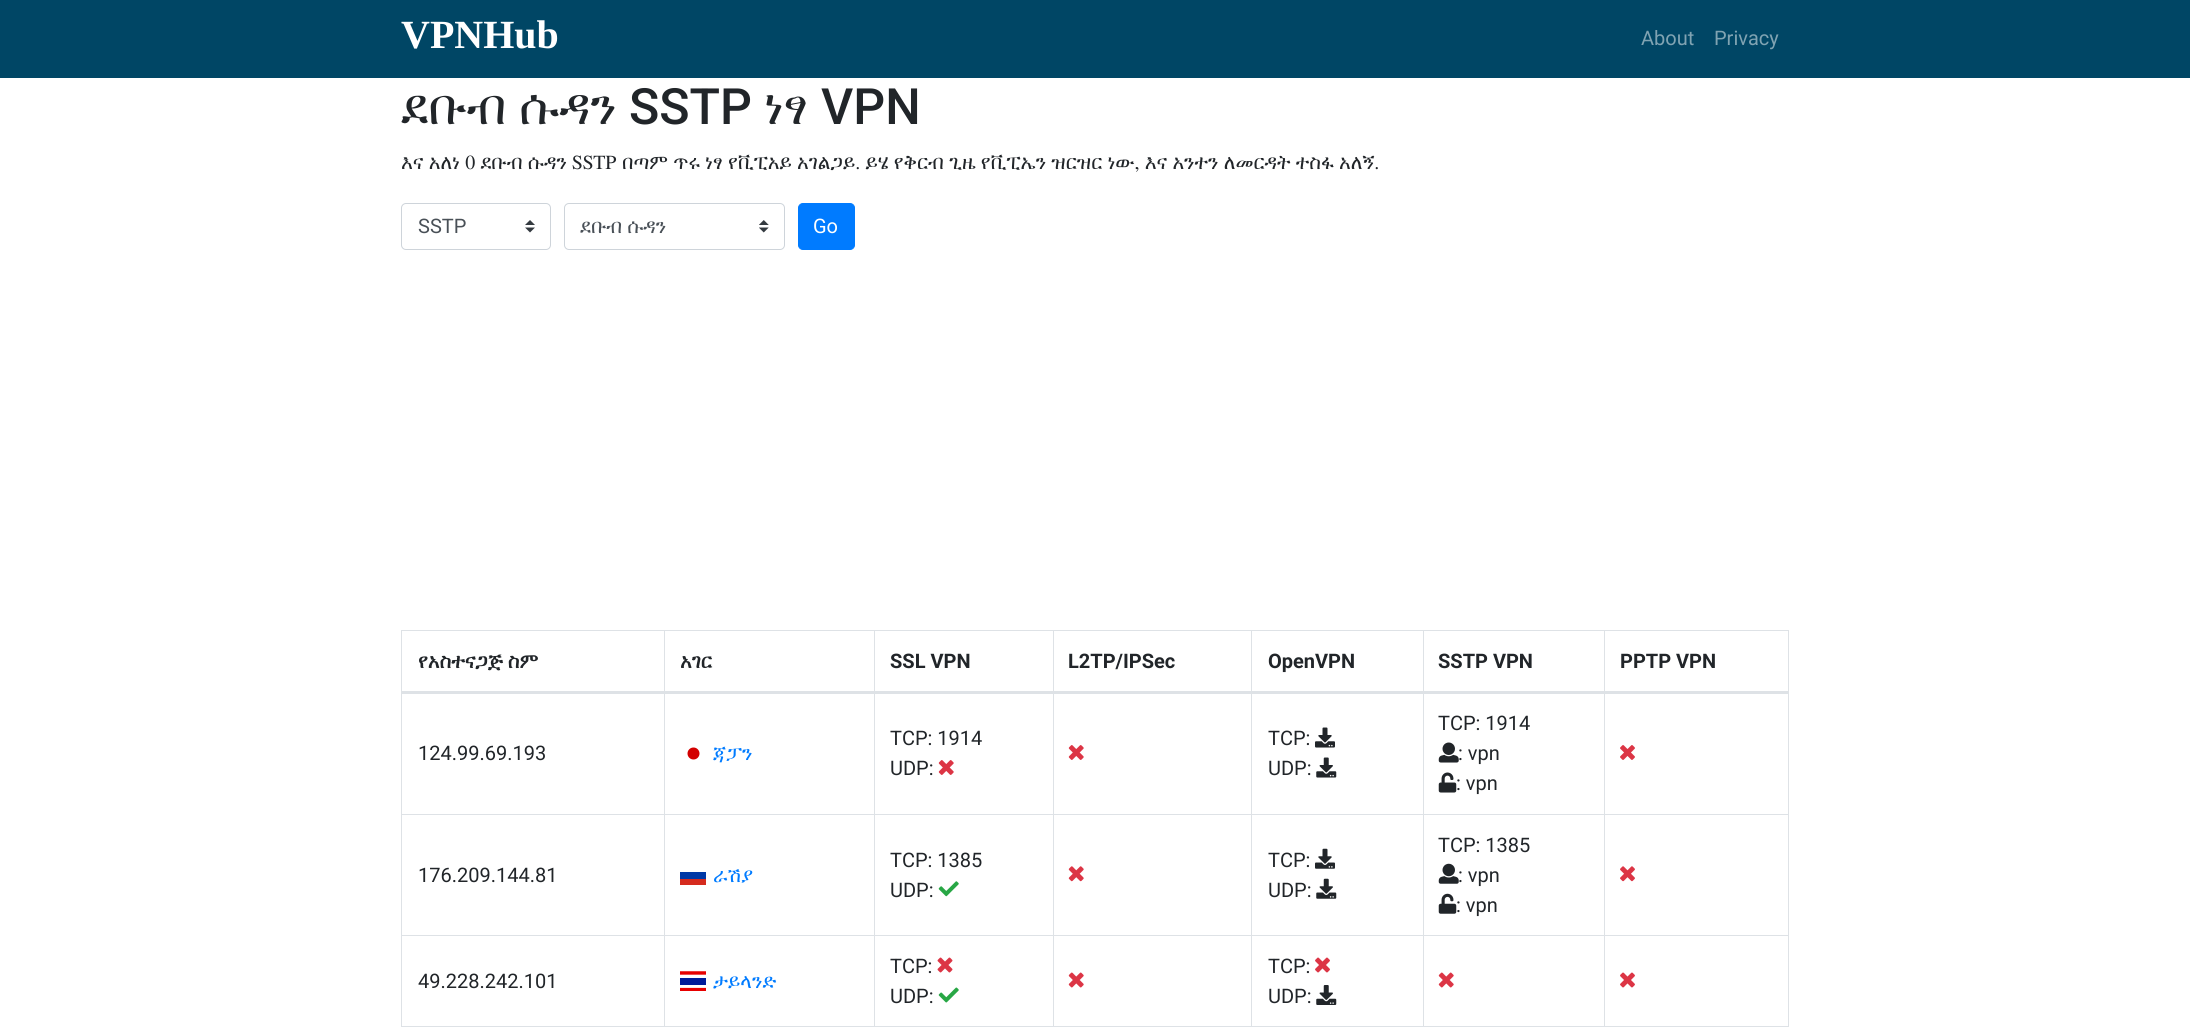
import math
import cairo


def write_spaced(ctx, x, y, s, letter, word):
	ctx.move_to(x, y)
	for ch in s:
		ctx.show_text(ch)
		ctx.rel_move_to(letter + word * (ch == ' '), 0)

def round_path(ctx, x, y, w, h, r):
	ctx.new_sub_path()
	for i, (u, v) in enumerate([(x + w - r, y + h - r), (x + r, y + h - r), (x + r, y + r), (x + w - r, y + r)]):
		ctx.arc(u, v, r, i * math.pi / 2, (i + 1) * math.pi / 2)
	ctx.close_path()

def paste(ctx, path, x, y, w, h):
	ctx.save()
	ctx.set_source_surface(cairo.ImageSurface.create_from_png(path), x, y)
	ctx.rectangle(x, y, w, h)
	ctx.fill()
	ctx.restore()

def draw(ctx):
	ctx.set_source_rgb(1, 1, 1)
	ctx.paint()
	ctx.set_source_rgb(0, 0.275, 0.396)
	ctx.rectangle(0, 0, 2190, 78)
	ctx.fill()
	ctx.select_font_face('Liberation Serif', cairo.FONT_SLANT_NORMAL, cairo.FONT_WEIGHT_BOLD)
	ctx.set_font_size(40)
	ctx.set_source_rgb(1, 1, 1)
	ctx.move_to(401, 48)
	ctx.show_text('VPNHub')
	ctx.select_font_face('Roboto')
	ctx.set_font_size(20)
	ctx.set_source_rgb(0.502, 0.639, 0.698)
	ctx.move_to(1641, 45)
	ctx.show_text('About')
	ctx.move_to(1714, 45)
	ctx.show_text('Privacy')
	ctx.select_font_face('FreeSerif')
	ctx.set_font_size(50)
	ctx.set_source_rgb(0.129, 0.145, 0.161)
	ctx.move_to(401, 124)
	ctx.show_text('ደቡብ ሱዳን')
	ctx.select_font_face('Roboto Medium')
	ctx.move_to(629, 124)
	ctx.show_text('SSTP')
	ctx.select_font_face('FreeSerif')
	ctx.move_to(764, 124)
	ctx.show_text('ነፃ')
	ctx.select_font_face('Roboto Medium')
	ctx.move_to(821, 124)
	ctx.show_text('VPN')
	ctx.select_font_face('FreeSerif')
	ctx.set_font_size(20)
	write_spaced(ctx, 401, 169, 'እና አለነ 0 ደቡብ ሱዳን SSTP በጣም ጥሩ ነፃ የቪፒአይ አገልጋይ. ይሄ የቅርብ ጊዜ የቪፒኤን ዝርዝር ነው, እና አንተን ለመርዳት ተስፋ አለኝ.', 0, 0.2)
	paste(ctx, 'media/1.png', 525, 220, 10, 13)
	round_path(ctx, 401.5, 203.5, 149, 46, 4.5)
	ctx.set_source_rgb(0.808, 0.831, 0.855)
	ctx.set_line_width(1)
	ctx.stroke()
	ctx.select_font_face('Roboto')
	ctx.set_source_rgb(0.286, 0.314, 0.341)
	ctx.move_to(418, 233)
	ctx.show_text('SSTP')
	paste(ctx, 'media/2.png', 759, 220, 10, 13)
	round_path(ctx, 564.5, 203.5, 220, 46, 4.5)
	ctx.set_source_rgb(0.808, 0.831, 0.855)
	ctx.stroke()
	ctx.select_font_face('FreeSerif')
	ctx.set_source_rgb(0.286, 0.314, 0.341)
	ctx.move_to(580, 233)
	ctx.show_text('ደቡብ ሱዳን')
	ctx.set_source_rgb(0, 0.482, 1)
	round_path(ctx, 798.5, 203.5, 56, 46, 4.5)
	ctx.fill_preserve()
	ctx.stroke()
	ctx.select_font_face('Roboto')
	ctx.set_source_rgb(1, 1, 1)
	ctx.move_to(813, 233)
	ctx.show_text('Go')
	ctx.set_source_rgb(0.871, 0.886, 0.902)
	ctx.rectangle(1604, 630, 185, 1)
	ctx.rectangle(1604, 814, 185, 1)
	ctx.rectangle(1604, 935, 185, 1)
	ctx.rectangle(401, 1026, 1388, 1)
	ctx.rectangle(1604, 935, 1, 92)
	ctx.rectangle(1423, 935, 182, 1)
	ctx.rectangle(1604, 814, 1, 122)
	ctx.rectangle(1423, 814, 182, 1)
	ctx.rectangle(1604, 693, 1, 122)
	ctx.rectangle(1604, 630, 1, 64)
	ctx.rectangle(1423, 630, 182, 1)
	ctx.rectangle(1423, 935, 1, 92)
	ctx.rectangle(1251, 935, 173, 1)
	ctx.rectangle(1423, 814, 1, 122)
	ctx.rectangle(1251, 814, 173, 1)
	ctx.rectangle(1423, 693, 1, 122)
	ctx.rectangle(1423, 630, 1, 64)
	ctx.rectangle(1251, 630, 173, 1)
	ctx.rectangle(1251, 935, 1, 92)
	ctx.rectangle(1053, 935, 200, 1)
	ctx.rectangle(1251, 814, 1, 122)
	ctx.rectangle(1053, 814, 200, 1)
	ctx.rectangle(1251, 693, 1, 122)
	ctx.rectangle(1251, 630, 1, 64)
	ctx.rectangle(1053, 630, 200, 1)
	ctx.rectangle(1053, 935, 1, 92)
	ctx.rectangle(874, 935, 180, 1)
	ctx.rectangle(1053, 814, 1, 122)
	ctx.rectangle(874, 814, 180, 1)
	ctx.rectangle(1053, 693, 1, 122)
	ctx.rectangle(1053, 630, 1, 64)
	ctx.rectangle(874, 630, 180, 1)
	ctx.rectangle(874, 935, 1, 92)
	ctx.rectangle(664, 935, 211, 1)
	ctx.rectangle(874, 814, 1, 122)
	ctx.rectangle(664, 814, 211, 1)
	ctx.rectangle(874, 693, 1, 122)
	ctx.rectangle(874, 630, 1, 64)
	ctx.rectangle(664, 630, 211, 1)
	ctx.rectangle(664, 935, 1, 92)
	ctx.rectangle(401, 935, 264, 1)
	ctx.rectangle(664, 814, 1, 122)
	ctx.rectangle(401, 814, 264, 1)
	ctx.rectangle(664, 693, 1, 122)
	ctx.rectangle(664, 630, 1, 64)
	ctx.rectangle(401, 630, 264, 1)
	ctx.rectangle(401, 935, 1, 92)
	ctx.rectangle(401, 693, 1, 243)
	ctx.rectangle(401, 630, 1, 64)
	ctx.fill()
	ctx.select_font_face('FreeSerif', cairo.FONT_SLANT_NORMAL, cairo.FONT_WEIGHT_BOLD)
	ctx.set_source_rgb(0.129, 0.145, 0.161)
	ctx.move_to(418, 668)
	ctx.show_text('የአስተናጋጅ ስም')
	ctx.move_to(680, 668)
	ctx.show_text('አገር')
	ctx.select_font_face('Roboto', cairo.FONT_SLANT_NORMAL, cairo.FONT_WEIGHT_BOLD)
	for x, y, s in [
		(890, 668, 'SSL VPN'),
		(1068, 668, 'L2TP/IPSec'),
		(1268, 668, 'OpenVPN'),
		(1438, 668, 'SSTP VPN'),
	]:
		ctx.move_to(x, y)
		ctx.show_text(s)
	ctx.set_source_rgb(0.871, 0.886, 0.902)
	ctx.rectangle(1788, 935, 1, 92)
	ctx.rectangle(1788, 693, 1, 243)
	ctx.rectangle(1788, 630, 1, 64)
	ctx.rectangle(401, 691, 1388, 3)
	ctx.fill()
	ctx.set_source_rgb(0.129, 0.145, 0.161)
	ctx.move_to(1620, 668)
	ctx.show_text('PPTP VPN')
	ctx.select_font_face('Roboto')
	ctx.move_to(418, 760)
	ctx.show_text('124.99.69.193')
	ctx.set_source_rgb(0.827, 0, 0)
	ctx.new_path()
	ctx.arc(693.5, 753.5, 6, 0, 2 * math.pi)
	ctx.fill()
	ctx.select_font_face('FreeSerif')
	ctx.set_source_rgb(0, 0.482, 1)
	ctx.move_to(713, 760)
	ctx.show_text('ጃፓን')
	ctx.select_font_face('Roboto')
	ctx.set_source_rgb(0.129, 0.145, 0.161)
	ctx.move_to(890, 745)
	ctx.show_text('TCP: 1914')
	ctx.move_to(890, 775)
	ctx.show_text('UDP:')
	paste(ctx, 'media/3.png', 938, 760, 16, 15)
	paste(ctx, 'media/3.png', 1068, 745, 16, 15)
	ctx.move_to(1268, 745)
	ctx.show_text('TCP:')
	paste(ctx, 'media/4.png', 1315, 727, 20, 21)
	ctx.move_to(1268, 775)
	ctx.show_text('UDP:')
	paste(ctx, 'media/5.png', 1316, 757, 21, 21)
	ctx.move_to(1438, 730)
	ctx.show_text('TCP: 1914')
	paste(ctx, 'media/6.png', 1438, 742, 21, 21)
	ctx.move_to(1458, 760)
	ctx.show_text(': vpn')
	paste(ctx, 'media/7.png', 1438, 772, 19, 21)
	ctx.move_to(1456, 790)
	ctx.show_text(': vpn')
	paste(ctx, 'media/8.png', 1620, 745, 15, 15)
	ctx.move_to(418, 882)
	ctx.show_text('176.209.144.81')
	ctx.set_source_rgb(0, 0.224, 0.651)
	ctx.rectangle(680, 872, 26, 7)
	ctx.fill()
	ctx.set_source_rgb(0.835, 0.169, 0.118)
	ctx.rectangle(680, 879, 26, 6)
	ctx.fill()
	ctx.select_font_face('FreeSerif')
	ctx.set_source_rgb(0, 0.482, 1)
	ctx.move_to(713, 882)
	ctx.show_text('ራሽያ')
	ctx.select_font_face('Roboto')
	ctx.set_source_rgb(0.129, 0.145, 0.161)
	ctx.move_to(890, 867)
	ctx.show_text('TCP: 1385')
	ctx.move_to(890, 897)
	ctx.show_text('UDP:')
	paste(ctx, 'media/9.png', 938, 881, 21, 16)
	paste(ctx, 'media/10.png', 1068, 866, 16, 16)
	ctx.move_to(1268, 867)
	ctx.show_text('TCP:')
	paste(ctx, 'media/11.png', 1315, 848, 20, 21)
	ctx.move_to(1268, 897)
	ctx.show_text('UDP:')
	paste(ctx, 'media/12.png', 1316, 878, 21, 21)
	ctx.move_to(1438, 852)
	ctx.show_text('TCP: 1385')
	paste(ctx, 'media/13.png', 1438, 863, 21, 21)
	ctx.move_to(1458, 882)
	ctx.show_text(': vpn')
	paste(ctx, 'media/14.png', 1438, 893, 19, 21)
	ctx.move_to(1456, 912)
	ctx.show_text(': vpn')
	paste(ctx, 'media/15.png', 1620, 866, 15, 16)
	ctx.move_to(418, 988)
	ctx.show_text('49.228.242.101')
	paste(ctx, 'media/16.png', 680, 971, 26, 20)
	ctx.select_font_face('FreeSerif')
	ctx.set_source_rgb(0, 0.482, 1)
	ctx.move_to(713, 988)
	ctx.show_text('ታይላንድ')
	ctx.select_font_face('Roboto')
	ctx.set_source_rgb(0.129, 0.145, 0.161)
	ctx.move_to(890, 973)
	ctx.show_text('TCP:')
	paste(ctx, 'media/17.png', 937, 957, 16, 16)
	ctx.move_to(890, 1003)
	ctx.show_text('UDP:')
	paste(ctx, 'media/18.png', 938, 987, 21, 16)
	paste(ctx, 'media/19.png', 1068, 972, 16, 16)
	ctx.move_to(1268, 973)
	ctx.show_text('TCP:')
	paste(ctx, 'media/20.png', 1315, 957, 15, 16)
	ctx.move_to(1268, 1003)
	ctx.show_text('UDP:')
	paste(ctx, 'media/21.png', 1316, 985, 21, 20)
	paste(ctx, 'media/19.png', 1438, 972, 16, 16)
	paste(ctx, 'media/20.png', 1620, 972, 15, 16)


surface = cairo.ImageSurface(cairo.FORMAT_RGB24, 2190, 1027)
ctx = cairo.Context(surface)
options = cairo.FontOptions()
options.set_hint_metrics(cairo.HINT_METRICS_OFF)
options.set_hint_style(cairo.HINT_STYLE_NONE)
ctx.set_font_options(options)
ctx.set_miter_limit(4)
draw(ctx)
surface.write_to_png('image.png')
